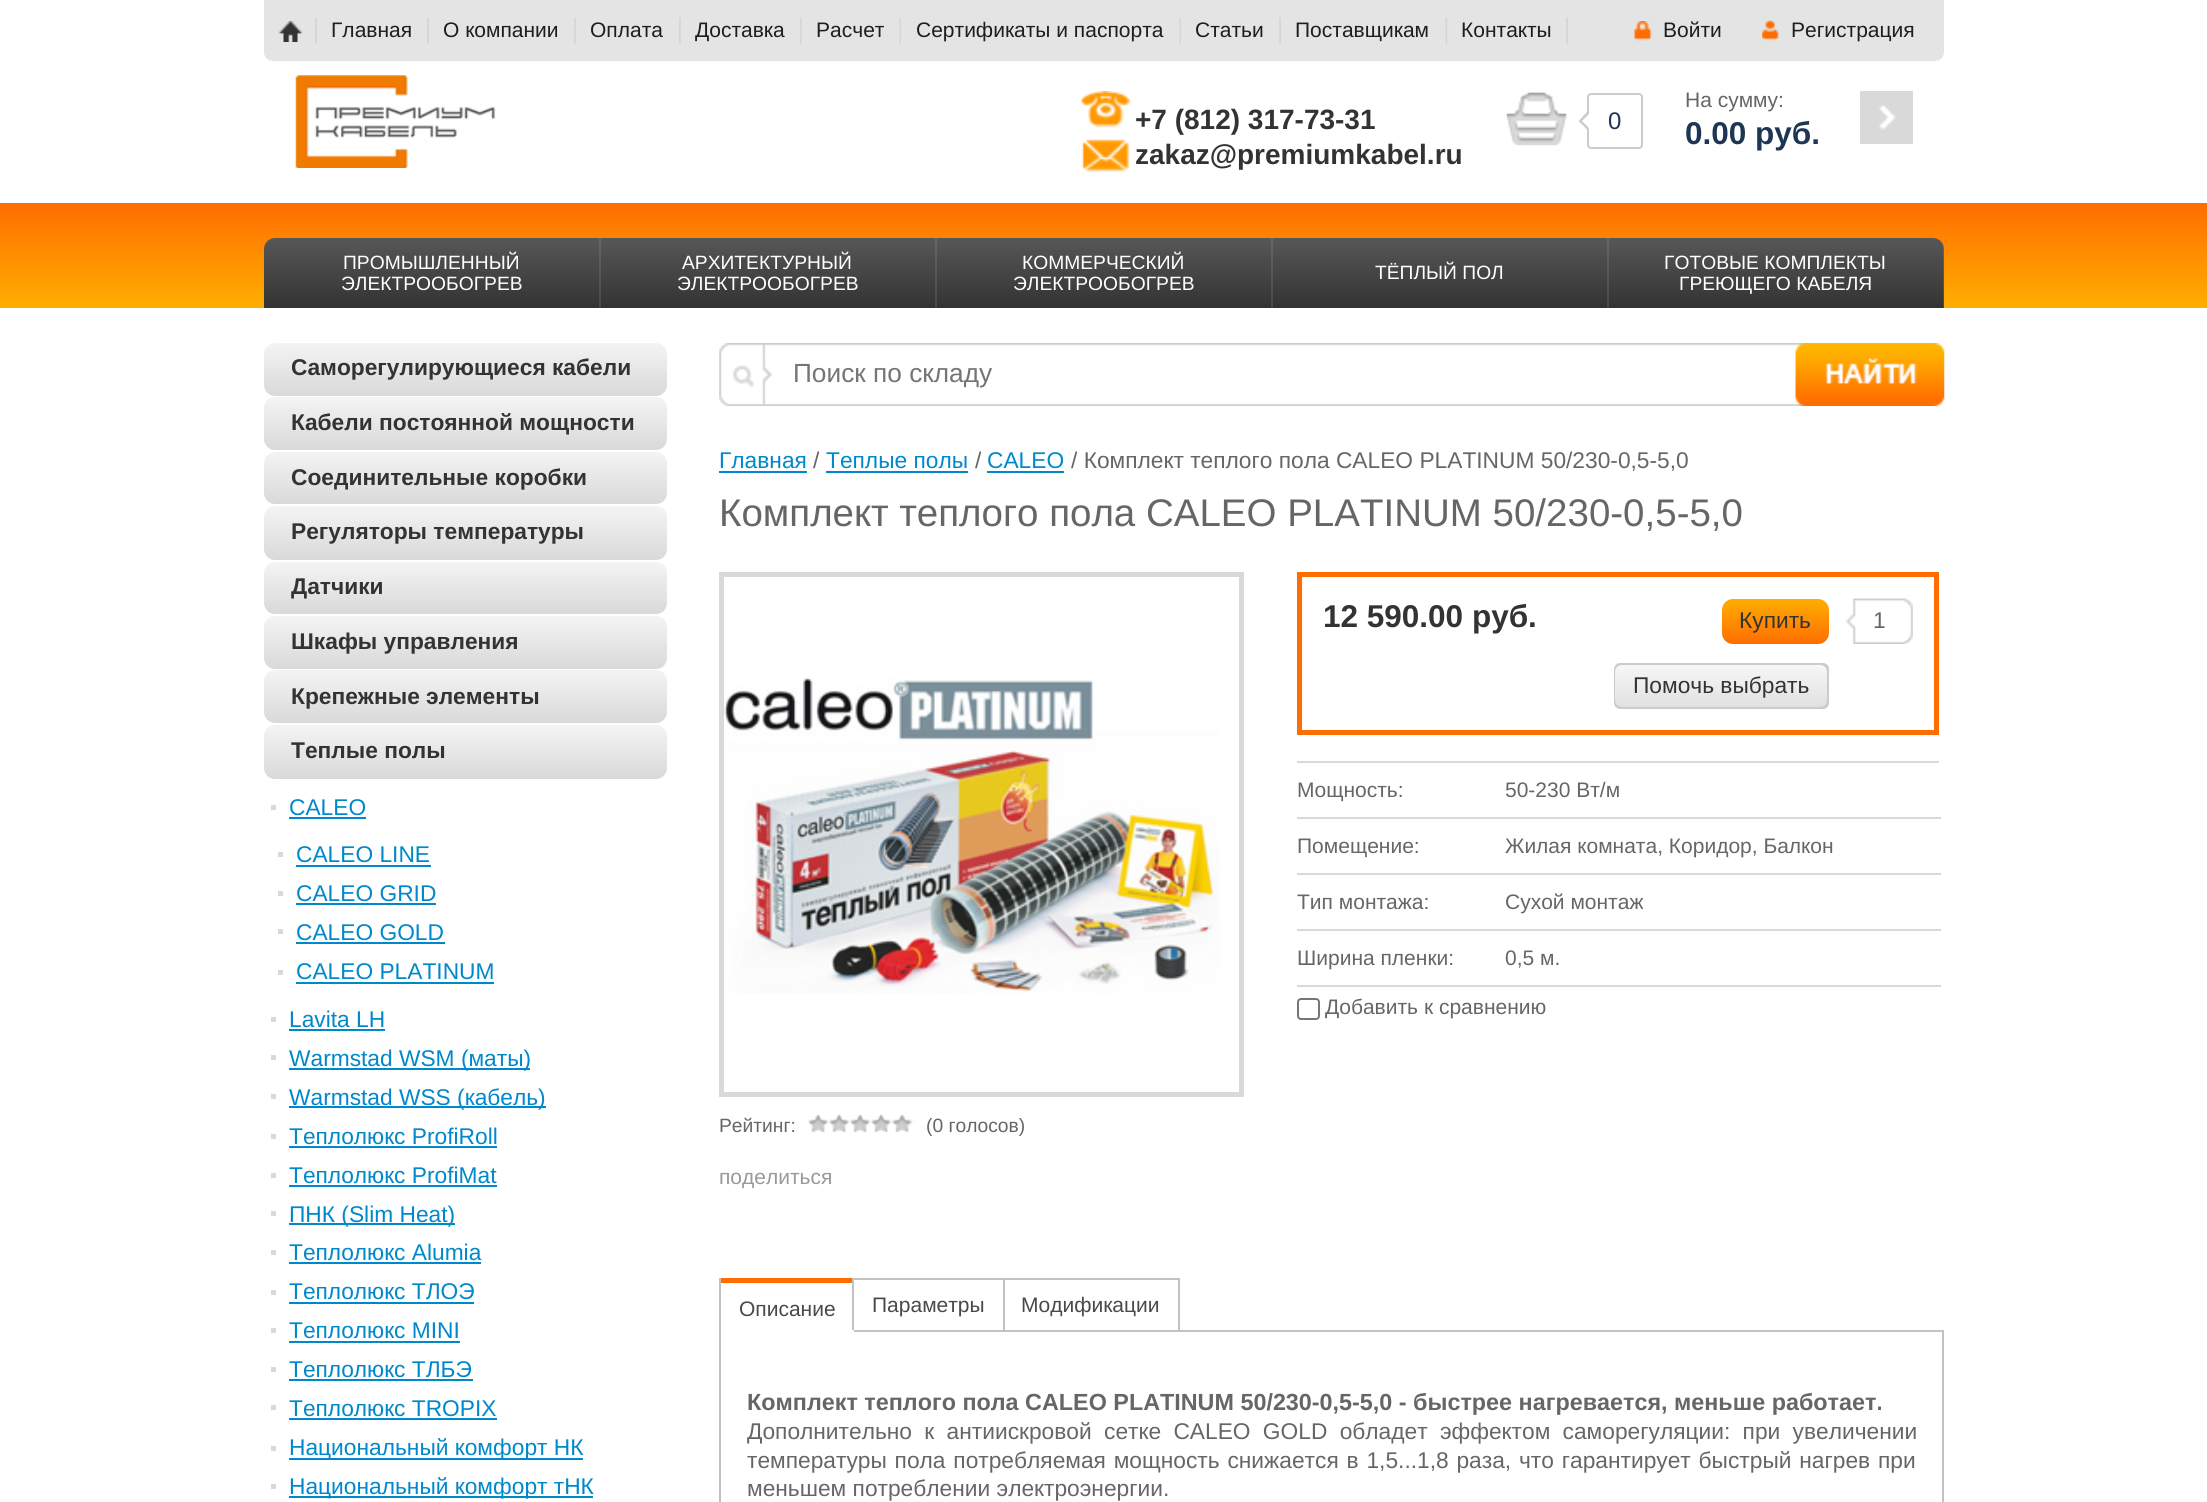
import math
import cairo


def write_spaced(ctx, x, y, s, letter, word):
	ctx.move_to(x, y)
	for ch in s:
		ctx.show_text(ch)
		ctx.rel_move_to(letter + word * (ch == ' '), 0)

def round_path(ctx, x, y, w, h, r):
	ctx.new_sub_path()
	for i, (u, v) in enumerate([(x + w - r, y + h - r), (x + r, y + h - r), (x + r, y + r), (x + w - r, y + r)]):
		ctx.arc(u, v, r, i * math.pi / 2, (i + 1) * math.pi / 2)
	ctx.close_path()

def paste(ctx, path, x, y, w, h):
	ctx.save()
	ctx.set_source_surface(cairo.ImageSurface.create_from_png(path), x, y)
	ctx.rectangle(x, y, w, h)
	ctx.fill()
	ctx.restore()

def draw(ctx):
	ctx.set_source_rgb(1, 1, 1)
	ctx.paint()
	ctx.set_source_rgb(0.894, 0.894, 0.894)
	ctx.new_path()
	ctx.move_to(264, 0)
	ctx.line_to(1944, 0)
	ctx.line_to(1944, 52)
	ctx.curve_to(1944, 57, 1940, 61, 1935, 61)
	ctx.line_to(273, 61)
	ctx.curve_to(268, 61, 264, 57, 264, 52)
	ctx.close_path()
	ctx.fill()
	paste(ctx, 'media/1.png', 278, 21, 25, 21)
	paste(ctx, 'media/2.png', 315, 17, 2, 27)
	ctx.select_font_face('Liberation Sans')
	ctx.set_font_size(21)
	ctx.set_source_rgb(0.118, 0.118, 0.118)
	ctx.move_to(331, 37)
	ctx.show_text('Главная')
	paste(ctx, 'media/2.png', 427, 17, 2, 27)
	ctx.move_to(443, 37)
	ctx.show_text('О компании')
	paste(ctx, 'media/2.png', 574, 17, 2, 27)
	ctx.move_to(590, 37)
	ctx.show_text('Оплата')
	paste(ctx, 'media/2.png', 679, 17, 2, 27)
	ctx.move_to(695, 37)
	ctx.show_text('Доставка')
	paste(ctx, 'media/3.png', 800, 17, 2, 27)
	ctx.move_to(816, 37)
	ctx.show_text('Расчет')
	paste(ctx, 'media/4.png', 899, 17, 2, 27)
	ctx.move_to(916, 37)
	ctx.show_text('Сертификаты и паспорта')
	paste(ctx, 'media/4.png', 1179, 17, 2, 27)
	ctx.move_to(1195, 37)
	ctx.show_text('Статьи')
	paste(ctx, 'media/5.png', 1279, 17, 2, 27)
	ctx.move_to(1295, 37)
	ctx.show_text('Поставщикам')
	paste(ctx, 'media/6.png', 1445, 17, 123, 27)
	ctx.move_to(1461, 37)
	ctx.show_text('Контакты')
	paste(ctx, 'media/7.png', 1634, 21, 18, 20)
	ctx.move_to(1663, 37)
	ctx.show_text('Войти')
	paste(ctx, 'media/8.png', 1762, 20, 17, 21)
	ctx.move_to(1791, 37)
	ctx.show_text('Регистрация')
	paste(ctx, 'media/9.png', 295, 75, 201, 93)
	paste(ctx, 'media/10.png', 1081, 91, 50, 81)
	ctx.select_font_face('Liberation Sans', cairo.FONT_SLANT_NORMAL, cairo.FONT_WEIGHT_BOLD)
	ctx.set_font_size(28)
	ctx.set_source_rgb(0.2, 0.2, 0.2)
	ctx.move_to(1135, 129)
	ctx.show_text('+7 (812) 317-73-31')
	ctx.move_to(1135, 164)
	ctx.show_text('zakaz@premiumkabel.ru')
	paste(ctx, 'media/11.png', 1506, 92, 61, 54)
	round_path(ctx, 1588, 94, 54, 54, 3)
	ctx.set_source_rgb(0.8, 0.8, 0.8)
	ctx.stroke()
	ctx.new_path()
	ctx.move_to(1587, 112)
	ctx.line_to(1587, 129.5)
	ctx.line_to(1578.5, 121)
	ctx.close_path()
	ctx.fill()
	ctx.select_font_face('Liberation Sans')
	ctx.set_font_size(24)
	ctx.set_source_rgb(0.118, 0.212, 0.325)
	ctx.move_to(1608, 129)
	ctx.show_text('0')
	ctx.set_source_rgb(1, 1, 1)
	ctx.new_path()
	ctx.move_to(1589, 114)
	ctx.line_to(1589, 128)
	ctx.line_to(1582, 121)
	ctx.close_path()
	ctx.fill()
	ctx.set_font_size(21)
	ctx.set_source_rgb(0.4, 0.4, 0.4)
	ctx.move_to(1685, 107)
	ctx.show_text('На сумму:')
	ctx.select_font_face('Liberation Sans', cairo.FONT_SLANT_NORMAL, cairo.FONT_WEIGHT_BOLD)
	ctx.set_font_size(31.5)
	ctx.set_source_rgb(0.118, 0.212, 0.325)
	ctx.move_to(1685, 144)
	ctx.show_text('0.00 руб.')
	ctx.set_source_rgb(0.851, 0.851, 0.851)
	ctx.rectangle(1860, 91, 53, 53)
	ctx.fill()
	paste(ctx, 'media/12.png', 1879, 105, 17, 25)
	gradient = cairo.LinearGradient(1104, 308, 1104, 203)
	gradient.add_color_stop_rgba(0, 1, 0.682, 0, 1)
	gradient.add_color_stop_rgba(0.5, 1, 0.557, 0, 1)
	gradient.add_color_stop_rgba(1, 1, 0.427, 0, 1)
	ctx.set_source(gradient)
	ctx.rectangle(0, 203, 2207, 105)
	ctx.fill()
	gradient = cairo.LinearGradient(1104, 238, 1104, 308)
	gradient.add_color_stop_rgba(0, 0.341, 0.341, 0.341, 1)
	gradient.add_color_stop_rgba(1, 0.2, 0.2, 0.2, 1)
	ctx.set_source(gradient)
	ctx.new_path()
	ctx.move_to(275, 238)
	ctx.line_to(1933, 238)
	ctx.curve_to(1939, 238, 1944, 243, 1944, 249)
	ctx.line_to(1944, 308)
	ctx.line_to(264, 308)
	ctx.line_to(264, 249)
	ctx.curve_to(264, 243, 269, 238, 275, 238)
	ctx.close_path()
	ctx.fill()
	gradient = cairo.LinearGradient(1104, 238, 1104, 308)
	gradient.add_color_stop_rgba(0, 0.408, 0.408, 0.408, 1)
	gradient.add_color_stop_rgba(1, 0.278, 0.278, 0.278, 1)
	ctx.set_source(gradient)
	ctx.rectangle(1607, 238, 2, 70)
	ctx.fill()
	ctx.rectangle(1271, 238, 2, 70)
	ctx.fill()
	ctx.rectangle(935, 238, 2, 70)
	ctx.fill()
	ctx.rectangle(599, 238, 2, 70)
	ctx.fill()
	ctx.select_font_face('Liberation Sans')
	ctx.set_font_size(19.25)
	ctx.set_source_rgb(1, 1, 1)
	for x, y, s in [
		(343, 269, 'ПРОМЫШЛЕННЫЙ'),
		(341, 290, 'ЭЛЕКТРООБОГРЕВ'),
		(682, 269, 'АРХИТЕКТУРНЫЙ'),
		(677, 290, 'ЭЛЕКТРООБОГРЕВ'),
		(1022, 269, 'КОММЕРЧЕСКИЙ'),
		(1013, 290, 'ЭЛЕКТРООБОГРЕВ'),
		(1375, 279, 'ТЁПЛЫЙ ПОЛ'),
	]:
		ctx.move_to(x, y)
		ctx.show_text(s)
	ctx.save()
	ctx.new_path()
	ctx.move_to(275, 238)
	ctx.line_to(1933, 238)
	ctx.curve_to(1939, 238, 1944, 243, 1944, 249)
	ctx.line_to(1944, 308)
	ctx.line_to(264, 308)
	ctx.line_to(264, 249)
	ctx.curve_to(264, 243, 269, 238, 275, 238)
	ctx.close_path()
	ctx.clip()
	ctx.set_source_rgba(1, 1, 1, 0.1)
	ctx.rectangle(1943, 238, 1, 70)
	ctx.fill()
	ctx.restore()
	ctx.move_to(1664, 269)
	ctx.show_text('ГОТОВЫЕ КОМПЛЕКТЫ')
	ctx.move_to(1679, 290)
	ctx.show_text('ГРЕЮЩЕГО КАБЕЛЯ')
	gradient = cairo.LinearGradient(466, 343, 466, 396)
	gradient.add_color_stop_rgba(0, 0.957, 0.957, 0.957, 1)
	gradient.add_color_stop_rgba(1, 0.851, 0.851, 0.851, 1)
	ctx.set_source(gradient)
	round_path(ctx, 264, 343, 403, 53, 11)
	ctx.fill()
	ctx.select_font_face('Liberation Sans', cairo.FONT_SLANT_NORMAL, cairo.FONT_WEIGHT_BOLD)
	ctx.set_font_size(22.75)
	ctx.set_source_rgb(0.2, 0.2, 0.2)
	ctx.move_to(291, 375)
	ctx.show_text('Саморегулирующиеся кабели')
	gradient = cairo.LinearGradient(466, 397, 466, 450)
	gradient.add_color_stop_rgba(0, 0.957, 0.957, 0.957, 1)
	gradient.add_color_stop_rgba(1, 0.851, 0.851, 0.851, 1)
	ctx.set_source(gradient)
	round_path(ctx, 264, 397, 403, 53, 11)
	ctx.fill()
	ctx.set_source_rgb(0.2, 0.2, 0.2)
	ctx.move_to(291, 430)
	ctx.show_text('Кабели постоянной мощности')
	gradient = cairo.LinearGradient(466, 452, 466, 504)
	gradient.add_color_stop_rgba(0, 0.957, 0.957, 0.957, 1)
	gradient.add_color_stop_rgba(1, 0.851, 0.851, 0.851, 1)
	ctx.set_source(gradient)
	round_path(ctx, 264, 452, 403, 52, 11)
	ctx.fill()
	ctx.set_source_rgb(0.2, 0.2, 0.2)
	ctx.move_to(291, 485)
	ctx.show_text('Соединительные коробки')
	gradient = cairo.LinearGradient(466, 506, 466, 560)
	gradient.add_color_stop_rgba(0, 0.957, 0.957, 0.957, 1)
	gradient.add_color_stop_rgba(1, 0.851, 0.851, 0.851, 1)
	ctx.set_source(gradient)
	round_path(ctx, 264, 506, 403, 54, 11)
	ctx.fill()
	ctx.set_source_rgb(0.2, 0.2, 0.2)
	ctx.move_to(291, 539)
	ctx.show_text('Регуляторы температуры')
	gradient = cairo.LinearGradient(466, 562, 466, 614)
	gradient.add_color_stop_rgba(0, 0.957, 0.957, 0.957, 1)
	gradient.add_color_stop_rgba(1, 0.851, 0.851, 0.851, 1)
	ctx.set_source(gradient)
	round_path(ctx, 264, 562, 403, 52, 11)
	ctx.fill()
	ctx.set_source_rgb(0.2, 0.2, 0.2)
	ctx.move_to(291, 594)
	ctx.show_text('Датчики')
	gradient = cairo.LinearGradient(466, 616, 466, 669)
	gradient.add_color_stop_rgba(0, 0.957, 0.957, 0.957, 1)
	gradient.add_color_stop_rgba(1, 0.851, 0.851, 0.851, 1)
	ctx.set_source(gradient)
	round_path(ctx, 264, 616, 403, 53, 11)
	ctx.fill()
	ctx.set_source_rgb(0.2, 0.2, 0.2)
	ctx.move_to(291, 649)
	ctx.show_text('Шкафы управления')
	gradient = cairo.LinearGradient(466, 670, 466, 723)
	gradient.add_color_stop_rgba(0, 0.957, 0.957, 0.957, 1)
	gradient.add_color_stop_rgba(1, 0.851, 0.851, 0.851, 1)
	ctx.set_source(gradient)
	round_path(ctx, 264, 670, 403, 53, 11)
	ctx.fill()
	ctx.set_source_rgb(0.2, 0.2, 0.2)
	ctx.move_to(291, 704)
	ctx.show_text('Крепежные элементы')
	gradient = cairo.LinearGradient(466, 725, 466, 779)
	gradient.add_color_stop_rgba(0, 0.957, 0.957, 0.957, 1)
	gradient.add_color_stop_rgba(1, 0.851, 0.851, 0.851, 1)
	ctx.set_source(gradient)
	round_path(ctx, 264, 725, 403, 54, 11)
	ctx.fill()
	ctx.set_source_rgb(0.2, 0.2, 0.2)
	ctx.move_to(291, 758)
	ctx.show_text('Теплые полы')
	ctx.set_source_rgb(0.851, 0.851, 0.851)
	ctx.rectangle(271, 805, 5, 5)
	ctx.fill()
	ctx.select_font_face('Liberation Sans')
	ctx.set_source_rgb(0, 0.533, 0.8)
	ctx.move_to(289, 815)
	ctx.show_text('CALEO')
	ctx.rectangle(289, 817, 77, 2)
	ctx.fill()
	ctx.set_source_rgb(0.851, 0.851, 0.851)
	ctx.rectangle(278, 852, 5, 5)
	ctx.fill()
	ctx.set_source_rgb(0, 0.533, 0.8)
	ctx.move_to(296, 862)
	ctx.show_text('CALEO LINE')
	ctx.rectangle(296, 865, 135, 2)
	ctx.fill()
	ctx.set_source_rgb(0.851, 0.851, 0.851)
	ctx.rectangle(278, 891, 5, 5)
	ctx.fill()
	ctx.set_source_rgb(0, 0.533, 0.8)
	ctx.move_to(296, 901)
	ctx.show_text('CALEO GRID')
	ctx.rectangle(296, 903, 140, 2)
	ctx.fill()
	ctx.set_source_rgb(0.851, 0.851, 0.851)
	ctx.rectangle(278, 929, 5, 5)
	ctx.fill()
	ctx.set_source_rgb(0, 0.533, 0.8)
	ctx.move_to(296, 940)
	ctx.show_text('CALEO GOLD')
	ctx.rectangle(296, 942, 149, 2)
	ctx.fill()
	ctx.set_source_rgb(0.851, 0.851, 0.851)
	ctx.rectangle(278, 970, 5, 5)
	ctx.fill()
	ctx.set_source_rgb(0, 0.533, 0.8)
	ctx.move_to(296, 979)
	ctx.show_text('CALEO PLATINUM')
	ctx.rectangle(296, 982, 198, 2)
	ctx.fill()
	ctx.set_source_rgb(0.851, 0.851, 0.851)
	ctx.rectangle(271, 1017, 5, 5)
	ctx.fill()
	ctx.set_source_rgb(0, 0.533, 0.8)
	ctx.move_to(289, 1027)
	ctx.show_text('Lavita LH')
	ctx.rectangle(289, 1029, 96, 2)
	ctx.fill()
	ctx.set_source_rgb(0.851, 0.851, 0.851)
	ctx.rectangle(271, 1055, 5, 5)
	ctx.fill()
	ctx.set_source_rgb(0, 0.533, 0.8)
	ctx.rectangle(289, 1068, 241, 2)
	ctx.fill()
	ctx.move_to(289, 1066)
	ctx.show_text('Warmstad WSM (маты)')
	ctx.set_source_rgb(0.851, 0.851, 0.851)
	ctx.rectangle(271, 1094, 5, 5)
	ctx.fill()
	ctx.set_source_rgb(0, 0.533, 0.8)
	ctx.rectangle(289, 1106, 257, 2)
	ctx.fill()
	ctx.move_to(289, 1105)
	ctx.show_text('Warmstad WSS (кабель)')
	ctx.set_source_rgb(0.851, 0.851, 0.851)
	ctx.rectangle(271, 1134, 5, 5)
	ctx.fill()
	ctx.set_source_rgb(0, 0.533, 0.8)
	ctx.move_to(289, 1144)
	ctx.show_text('Теплолюкс ProfiRoll')
	ctx.rectangle(289, 1146, 208, 2)
	ctx.fill()
	ctx.set_source_rgb(0.851, 0.851, 0.851)
	ctx.rectangle(271, 1173, 5, 5)
	ctx.fill()
	ctx.set_source_rgb(0, 0.533, 0.8)
	ctx.move_to(289, 1183)
	ctx.show_text('Теплолюкс ProfiMat')
	ctx.rectangle(289, 1185, 208, 2)
	ctx.fill()
	ctx.set_source_rgb(0.851, 0.851, 0.851)
	ctx.rectangle(271, 1211, 5, 5)
	ctx.fill()
	ctx.set_source_rgb(0, 0.533, 0.8)
	ctx.rectangle(289, 1223, 166, 2)
	ctx.fill()
	ctx.move_to(289, 1222)
	ctx.show_text('ПНК (Slim Heat)')
	ctx.set_source_rgb(0.851, 0.851, 0.851)
	ctx.rectangle(271, 1250, 5, 5)
	ctx.fill()
	ctx.set_source_rgb(0, 0.533, 0.8)
	ctx.move_to(289, 1260)
	ctx.show_text('Теплолюкс Alumia')
	ctx.rectangle(289, 1262, 192, 2)
	ctx.fill()
	ctx.set_source_rgb(0.851, 0.851, 0.851)
	ctx.rectangle(271, 1290, 5, 5)
	ctx.fill()
	ctx.set_source_rgb(0, 0.533, 0.8)
	ctx.move_to(289, 1299)
	ctx.show_text('Теплолюкс ТЛОЭ')
	ctx.rectangle(289, 1302, 185, 2)
	ctx.fill()
	ctx.set_source_rgb(0.851, 0.851, 0.851)
	ctx.rectangle(271, 1328, 5, 5)
	ctx.fill()
	ctx.set_source_rgb(0, 0.533, 0.8)
	ctx.move_to(289, 1338)
	ctx.show_text('Теплолюкс MINI')
	ctx.rectangle(289, 1341, 171, 2)
	ctx.fill()
	ctx.set_source_rgb(0.851, 0.851, 0.851)
	ctx.rectangle(271, 1367, 5, 5)
	ctx.fill()
	ctx.set_source_rgb(0, 0.533, 0.8)
	ctx.move_to(289, 1377)
	ctx.show_text('Теплолюкс ТЛБЭ')
	ctx.rectangle(289, 1379, 184, 2)
	ctx.fill()
	ctx.set_source_rgb(0.851, 0.851, 0.851)
	ctx.rectangle(271, 1405, 5, 5)
	ctx.fill()
	ctx.set_source_rgb(0, 0.533, 0.8)
	ctx.move_to(289, 1416)
	ctx.show_text('Теплолюкс TROPIX')
	ctx.rectangle(289, 1418, 208, 2)
	ctx.fill()
	ctx.set_source_rgb(0.851, 0.851, 0.851)
	ctx.rectangle(271, 1446, 5, 5)
	ctx.fill()
	ctx.set_source_rgb(0, 0.533, 0.8)
	ctx.rectangle(289, 1458, 294, 2)
	ctx.fill()
	ctx.move_to(289, 1455)
	ctx.show_text('Национальный комфорт НК')
	ctx.set_source_rgb(0.851, 0.851, 0.851)
	ctx.rectangle(271, 1484, 5, 5)
	ctx.fill()
	ctx.set_source_rgb(0, 0.533, 0.8)
	ctx.rectangle(289, 1496, 304, 2)
	ctx.fill()
	ctx.move_to(289, 1494)
	ctx.show_text('Национальный комфорт тНК')
	paste(ctx, 'media/13.png', 719, 343, 1226, 63)
	ctx.set_font_size(26.25)
	ctx.set_source_rgb(0.459, 0.459, 0.459)
	ctx.move_to(793, 382)
	ctx.show_text('Поиск по складу')
	ctx.set_font_size(22.75)
	ctx.set_source_rgb(0, 0.533, 0.8)
	ctx.move_to(719, 468)
	ctx.show_text('Главная')
	ctx.rectangle(719, 471, 88, 2)
	ctx.fill()
	ctx.set_source_rgb(0.4, 0.4, 0.4)
	ctx.move_to(813, 468)
	ctx.show_text('/')
	ctx.set_source_rgb(0, 0.533, 0.8)
	ctx.move_to(826, 468)
	ctx.show_text('Теплые полы')
	ctx.rectangle(826, 471, 142, 2)
	ctx.fill()
	ctx.set_source_rgb(0.4, 0.4, 0.4)
	ctx.move_to(975, 468)
	ctx.show_text('/')
	ctx.set_source_rgb(0, 0.533, 0.8)
	ctx.move_to(987, 468)
	ctx.show_text('CALEO')
	ctx.rectangle(987, 471, 77, 2)
	ctx.fill()
	ctx.set_source_rgb(0.4, 0.4, 0.4)
	ctx.move_to(1071, 468)
	ctx.show_text('/ Комплект теплого пола CALEO PLATINUM 50/230-0,5-5,0')
	ctx.set_font_size(38.5)
	ctx.move_to(719, 526)
	ctx.show_text('Комплект теплого пола CALEO PLATINUM 50/230-0,5-5,0')
	ctx.rectangle(1299.5, 574.5, 637, 158)
	ctx.set_source_rgb(1, 0.427, 0)
	ctx.set_line_width(5)
	ctx.stroke()
	ctx.select_font_face('Liberation Sans', cairo.FONT_SLANT_NORMAL, cairo.FONT_WEIGHT_BOLD)
	ctx.set_font_size(31.5)
	ctx.set_source_rgb(0.2, 0.2, 0.2)
	ctx.move_to(1323, 627)
	ctx.show_text('12 590.00 руб.')
	gradient = cairo.LinearGradient(1775, 599, 1775, 644)
	gradient.add_color_stop_rgba(0, 1, 0.682, 0, 1)
	gradient.add_color_stop_rgba(1, 1, 0.427, 0, 1)
	ctx.set_source(gradient)
	round_path(ctx, 1722, 599, 107, 45, 11)
	ctx.fill()
	ctx.select_font_face('Liberation Sans')
	ctx.set_font_size(22.75)
	ctx.set_source_rgb(0.2, 0.2, 0.2)
	ctx.move_to(1739, 628)
	ctx.show_text('Купить')
	paste(ctx, 'media/14.png', 1846, 598, 67, 46)
	ctx.set_source_rgb(0.4, 0.4, 0.4)
	ctx.move_to(1873, 628)
	ctx.show_text('1')
	gradient = cairo.LinearGradient(1721, 663, 1721, 709)
	gradient.add_color_stop_rgba(0, 0.973, 0.973, 0.973, 1)
	gradient.add_color_stop_rgba(1, 0.875, 0.875, 0.875, 1)
	ctx.set_source(gradient)
	round_path(ctx, 1614, 663, 215, 46, 7)
	ctx.fill()
	ctx.set_source_rgb(0.8, 0.8, 0.8)
	ctx.new_path()
	ctx.move_to(1616, 665)
	ctx.curve_to(1615, 667, 1614, 668, 1614, 670)
	ctx.line_to(1614, 702)
	ctx.curve_to(1614, 706, 1617, 709, 1621, 709)
	ctx.line_to(1822, 709)
	ctx.curve_to(1825, 709, 1828, 707, 1829, 704)
	ctx.curve_to(1827, 706, 1826, 707, 1824, 707)
	ctx.line_to(1622, 707)
	ctx.curve_to(1618, 707, 1615, 704, 1615, 700)
	ctx.line_to(1615, 668)
	ctx.close_path()
	ctx.fill()
	ctx.new_path()
	ctx.move_to(1619, 665)
	ctx.line_to(1820, 665)
	ctx.curve_to(1824, 665, 1827, 668, 1827, 672)
	ctx.line_to(1827, 704)
	ctx.curve_to(1827, 706, 1826, 707, 1824, 709)
	ctx.curve_to(1827, 708, 1829, 705, 1829, 702)
	ctx.line_to(1829, 670)
	ctx.curve_to(1829, 666, 1826, 663, 1822, 663)
	ctx.line_to(1621, 663)
	ctx.curve_to(1619, 663, 1616, 664, 1615, 666)
	ctx.close_path()
	ctx.fill()
	ctx.new_path()
	ctx.move_to(1615, 706)
	ctx.curve_to(1616, 708, 1619, 709, 1621, 709)
	ctx.line_to(1822, 709)
	ctx.curve_to(1826, 709, 1829, 706, 1829, 702)
	ctx.line_to(1829, 670)
	ctx.curve_to(1829, 667, 1827, 664, 1824, 663)
	ctx.curve_to(1826, 665, 1827, 666, 1827, 668)
	ctx.line_to(1827, 700)
	ctx.curve_to(1827, 704, 1824, 707, 1820, 707)
	ctx.line_to(1619, 707)
	ctx.curve_to(1618, 707, 1616, 707, 1615, 706)
	ctx.close_path()
	ctx.fill()
	ctx.new_path()
	ctx.move_to(1622, 665)
	ctx.line_to(1824, 665)
	ctx.curve_to(1826, 665, 1827, 666, 1829, 668)
	ctx.curve_to(1828, 665, 1825, 663, 1822, 663)
	ctx.line_to(1621, 663)
	ctx.curve_to(1617, 663, 1614, 666, 1614, 670)
	ctx.line_to(1614, 702)
	ctx.curve_to(1614, 704, 1615, 705, 1616, 707)
	ctx.line_to(1615, 704)
	ctx.line_to(1615, 672)
	ctx.curve_to(1615, 668, 1618, 665, 1622, 665)
	ctx.close_path()
	ctx.fill()
	ctx.set_source_rgb(0.2, 0.2, 0.2)
	ctx.move_to(1633, 693)
	ctx.show_text('Помочь выбрать')
	ctx.set_source_rgb(0.851, 0.851, 0.851)
	ctx.rectangle(1297, 761, 642, 2)
	ctx.fill()
	ctx.rectangle(1297, 817, 644, 2)
	ctx.fill()
	ctx.set_font_size(21)
	ctx.set_source_rgb(0.4, 0.4, 0.4)
	ctx.move_to(1297, 797)
	ctx.show_text('Мощность:')
	ctx.move_to(1505, 797)
	ctx.show_text('50-230 Вт/м')
	ctx.set_source_rgb(0.851, 0.851, 0.851)
	ctx.rectangle(1297, 873, 644, 2)
	ctx.fill()
	ctx.set_source_rgb(0.4, 0.4, 0.4)
	ctx.move_to(1297, 853)
	ctx.show_text('Помещение:')
	ctx.move_to(1505, 853)
	ctx.show_text('Жилая комната, Коридор, Балкон')
	ctx.set_source_rgb(0.851, 0.851, 0.851)
	ctx.rectangle(1297, 929, 644, 2)
	ctx.fill()
	ctx.set_source_rgb(0.4, 0.4, 0.4)
	ctx.move_to(1297, 909)
	ctx.show_text('Тип монтажа:')
	ctx.move_to(1505, 909)
	ctx.show_text('Сухой монтаж')
	ctx.set_source_rgb(0.851, 0.851, 0.851)
	ctx.rectangle(1297, 985, 644, 2)
	ctx.fill()
	ctx.set_source_rgb(0.4, 0.4, 0.4)
	ctx.move_to(1297, 965)
	ctx.show_text('Ширина пленки:')
	ctx.move_to(1505, 965)
	ctx.show_text('0,5 м.')
	round_path(ctx, 1298, 999, 21, 20, 3)
	ctx.set_source_rgb(0.463, 0.463, 0.463)
	ctx.set_line_width(2)
	ctx.stroke()
	ctx.set_source_rgb(0.4, 0.4, 0.4)
	ctx.move_to(1325, 1014)
	ctx.show_text('Добавить к сравнению')
	ctx.rectangle(721.5, 574.5, 520, 520)
	ctx.set_source_rgb(0.851, 0.851, 0.851)
	ctx.set_line_width(5)
	ctx.stroke()
	paste(ctx, 'media/15.png', 724, 678, 496, 316)
	ctx.set_font_size(19.25)
	ctx.set_source_rgb(0.4, 0.4, 0.4)
	ctx.move_to(719, 1132)
	ctx.show_text('Рейтинг:')
	paste(ctx, 'media/16.png', 808, 1114, 106, 19)
	ctx.move_to(926, 1132)
	ctx.show_text('(0 голосов)')
	ctx.set_font_size(21)
	ctx.set_source_rgb(0.6, 0.6, 0.6)
	ctx.move_to(719, 1184)
	ctx.show_text('поделиться')
	ctx.rectangle(720, 1331, 1223, 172)
	ctx.set_source_rgb(0.761, 0.761, 0.761)
	ctx.set_line_width(2)
	ctx.stroke()
	ctx.rectangle(852, 1278, 2, 54)
	ctx.fill()
	ctx.set_source_rgb(1, 1, 1)
	ctx.rectangle(719, 1330, 135, 2)
	ctx.fill()
	ctx.set_source_rgb(0.761, 0.761, 0.761)
	ctx.rectangle(719, 1278, 2, 54)
	ctx.fill()
	ctx.set_source_rgb(1, 0.427, 0)
	ctx.rectangle(721, 1278, 131, 5)
	ctx.fill()
	ctx.set_source_rgb(0.286, 0.286, 0.286)
	ctx.move_to(739, 1316)
	ctx.show_text('Описание')
	ctx.set_source_rgb(0.761, 0.761, 0.761)
	ctx.rectangle(854, 1278, 326, 2)
	ctx.fill()
	ctx.rectangle(1003, 1278, 2, 54)
	ctx.fill()
	ctx.set_source_rgb(0.286, 0.286, 0.286)
	ctx.move_to(872, 1312)
	ctx.show_text('Параметры')
	ctx.set_source_rgb(0.761, 0.761, 0.761)
	ctx.rectangle(1178, 1278, 2, 54)
	ctx.fill()
	ctx.set_source_rgb(0.286, 0.286, 0.286)
	ctx.move_to(1021, 1312)
	ctx.show_text('Модификации')
	ctx.select_font_face('Liberation Sans', cairo.FONT_SLANT_NORMAL, cairo.FONT_WEIGHT_BOLD)
	ctx.set_font_size(23.35)
	ctx.set_source_rgb(0.4, 0.4, 0.4)
	ctx.move_to(747, 1410)
	ctx.show_text('Комплект теплого пола CALEO PLATINUM 50/230-0,5-5,0 - быстрее нагревается, меньше работает.')
	ctx.select_font_face('Liberation Sans')
	ctx.set_font_size(22.75)
	write_spaced(ctx, 747, 1439, 'Дополнительно к антиискровой сетке CALEO GOLD обладет эффектом саморегуляции: при увеличении', 0, 6)
	write_spaced(ctx, 747, 1468, 'температуры пола потребляемая мощность снижается в 1,5...1,8 раза, что гарантирует быстрый нагрев при', 0, 1.5)
	ctx.move_to(747, 1496)
	ctx.show_text('меньшем потреблении электроэнергии.')


surface = cairo.ImageSurface(cairo.FORMAT_RGB24, 2207, 1502)
ctx = cairo.Context(surface)
options = cairo.FontOptions()
options.set_hint_metrics(cairo.HINT_METRICS_OFF)
options.set_hint_style(cairo.HINT_STYLE_NONE)
ctx.set_font_options(options)
ctx.set_miter_limit(4)
draw(ctx)
surface.write_to_png('image.png')
